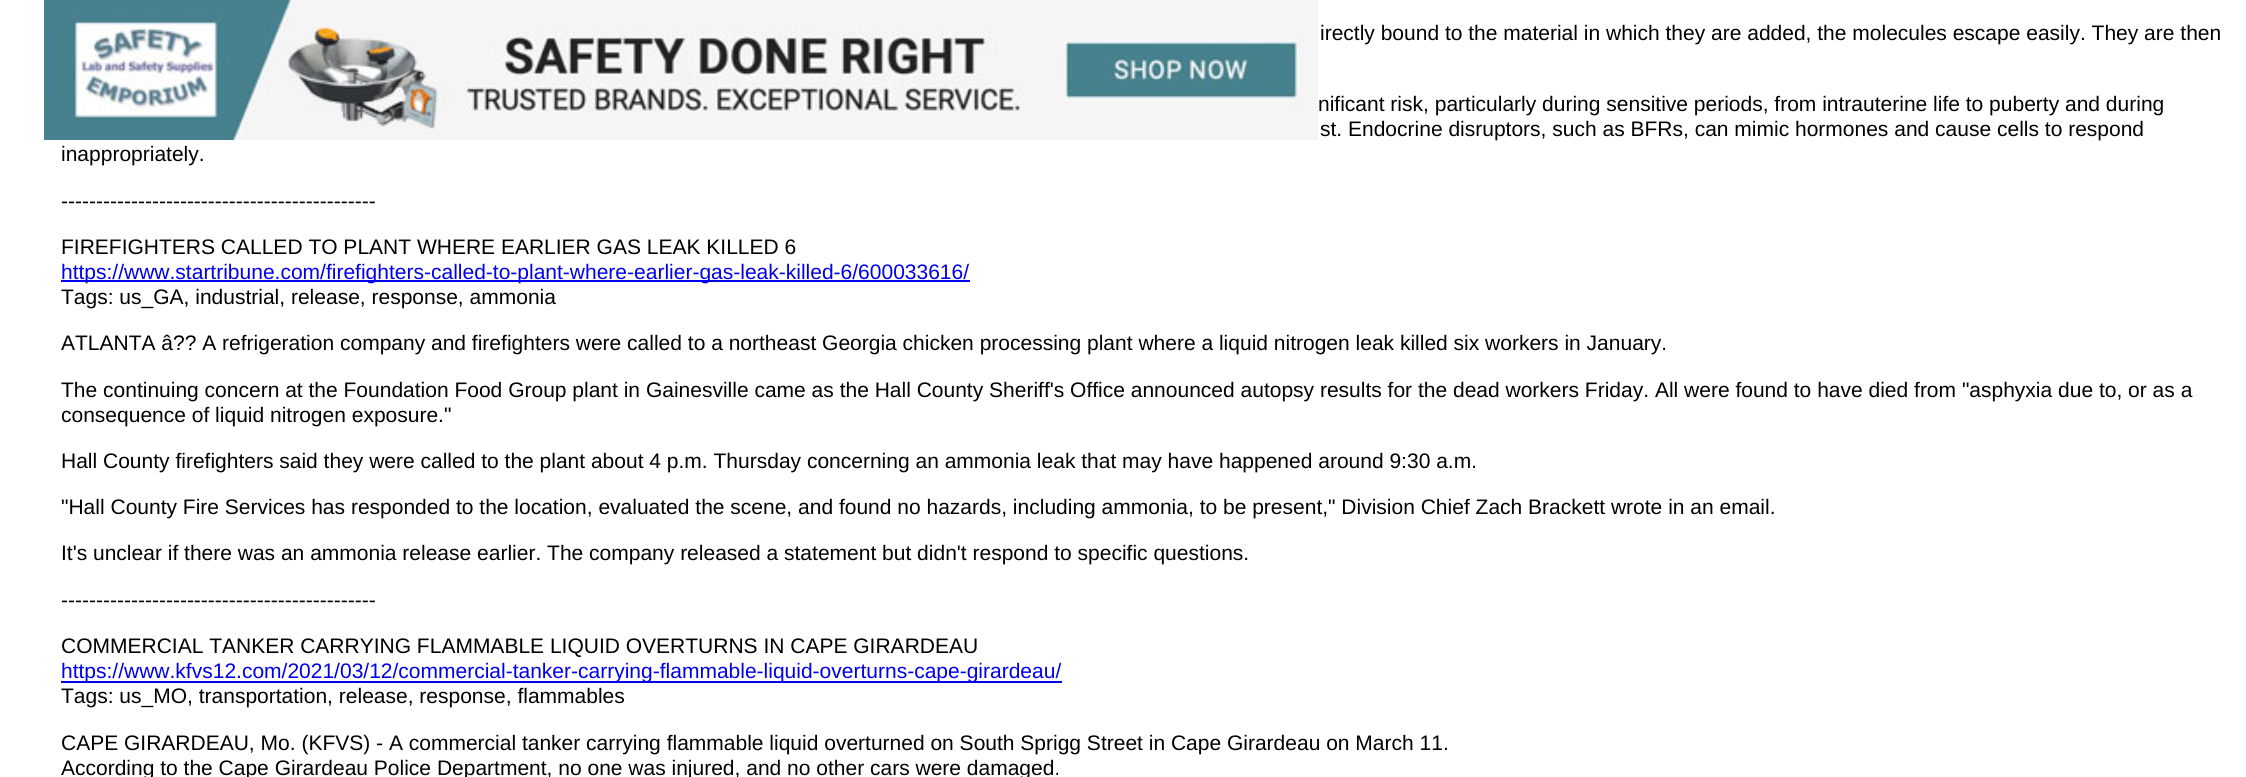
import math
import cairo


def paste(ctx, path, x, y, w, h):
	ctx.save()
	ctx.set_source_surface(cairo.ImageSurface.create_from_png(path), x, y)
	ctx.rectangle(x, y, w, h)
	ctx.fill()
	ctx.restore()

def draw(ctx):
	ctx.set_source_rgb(1, 1, 1)
	ctx.paint()
	paste(ctx, 'media/1.png', 44, 0, 1274, 140)
	ctx.select_font_face('Liberation Sans')
	ctx.set_font_size(21)
	ctx.set_source_rgb(0, 0, 0)
	for x, y, s in [
		(1320, 40, 'irectly bound to the material in which they are added, the molecules escape easily. They are then'),
		(1318, 111, 'nificant risk, particularly during sensitive periods, from intrauterine life to puberty and during'),
		(1320, 136, 'st. Endocrine disruptors, such as BFRs, can mimic hormones and cause cells to respond'),
		(61, 161, 'inappropriately.'),
		(61, 208, '---------------------------------------------'),
		(61, 254, 'FIREFIGHTERS CALLED TO PLANT WHERE EARLIER GAS LEAK KILLED 6'),
	]:
		ctx.move_to(x, y)
		ctx.show_text(s)
	ctx.set_source_rgb(0, 0, 0.933)
	ctx.rectangle(61, 280, 909, 2)
	ctx.fill()
	ctx.move_to(61, 279)
	ctx.show_text('https://www.startribune.com/firefighters-called-to-plant-where-earlier-gas-leak-killed-6/600033616/')
	ctx.set_source_rgb(0, 0, 0)
	for x, y, s in [
		(61, 304, 'Tags: us_GA, industrial, release, response, ammonia'),
		(61, 350, 'ATLANTA â?? A refrigeration company and firefighters were called to a northeast Georgia chicken processing plant where a liquid nitrogen leak killed six workers in January.'),
		(61, 397, 'The continuing concern at the Foundation Food Group plant in Gainesville came as the Hall County Sheriff\'s Office announced autopsy results for the dead workers Friday. All were found to have died from "asphyxia due to, or as a'),
		(61, 422, 'consequence of liquid nitrogen exposure."'),
		(61, 468, 'Hall County firefighters said they were called to the plant about 4 p.m. Thursday concerning an ammonia leak that may have happened around 9:30 a.m.'),
		(61, 514, '"Hall County Fire Services has responded to the location, evaluated the scene, and found no hazards, including ammonia, to be present," Division Chief Zach Brackett wrote in an email.'),
		(61, 560, 'It\'s unclear if there was an ammonia release earlier. The company released a statement but didn\'t respond to specific questions.'),
		(61, 607, '---------------------------------------------'),
		(61, 653, 'COMMERCIAL TANKER CARRYING FLAMMABLE LIQUID OVERTURNS IN CAPE GIRARDEAU'),
	]:
		ctx.move_to(x, y)
		ctx.show_text(s)
	ctx.set_source_rgb(0, 0, 0.933)
	ctx.rectangle(61, 681, 1001, 2)
	ctx.fill()
	ctx.move_to(61, 678)
	ctx.show_text('https://www.kfvs12.com/2021/03/12/commercial-tanker-carrying-flammable-liquid-overturns-cape-girardeau/')
	ctx.set_source_rgb(0, 0, 0)
	for x, y, s in [
		(61, 703, 'Tags: us_MO, transportation, release, response, flammables'),
		(61, 750, 'CAPE GIRARDEAU, Mo. (KFVS) - A commercial tanker carrying flammable liquid overturned on South Sprigg Street in Cape Girardeau on March 11.'),
		(61, 775, 'According to the Cape Girardeau Police Department, no one was injured, and no other cars were damaged.'),
	]:
		ctx.move_to(x, y)
		ctx.show_text(s)


surface = cairo.ImageSurface(cairo.FORMAT_RGB24, 2246, 777)
ctx = cairo.Context(surface)
options = cairo.FontOptions()
options.set_hint_metrics(cairo.HINT_METRICS_OFF)
options.set_hint_style(cairo.HINT_STYLE_NONE)
ctx.set_font_options(options)
ctx.set_miter_limit(4)
draw(ctx)
surface.write_to_png('image.png')
